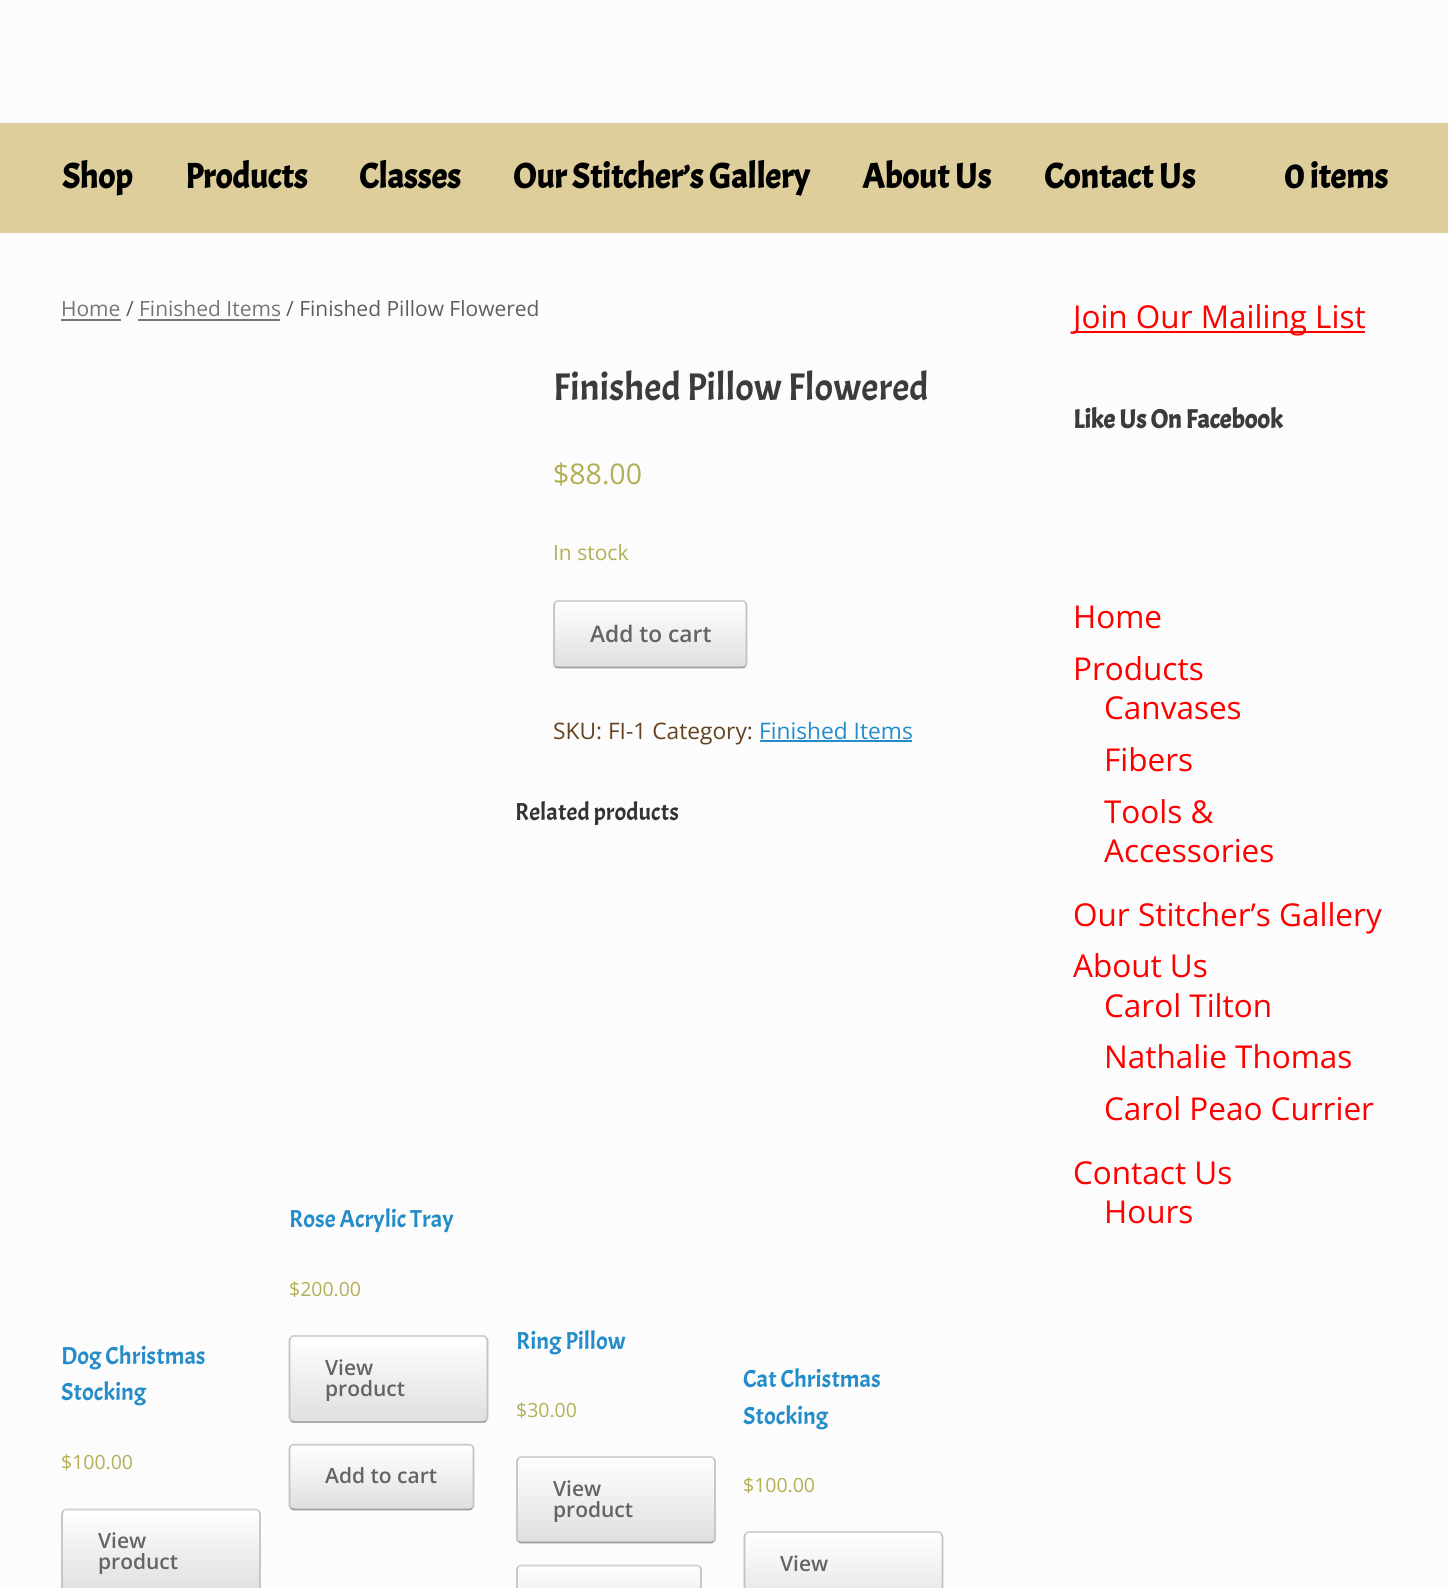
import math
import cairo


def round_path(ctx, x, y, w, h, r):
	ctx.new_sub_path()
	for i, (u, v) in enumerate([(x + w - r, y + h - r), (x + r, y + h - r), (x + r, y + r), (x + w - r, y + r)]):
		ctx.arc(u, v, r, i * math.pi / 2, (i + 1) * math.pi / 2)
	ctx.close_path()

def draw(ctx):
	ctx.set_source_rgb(0.988, 0.988, 0.988)
	ctx.paint()
	ctx.set_source_rgb(0.867, 0.808, 0.608)
	ctx.rectangle(0, 123, 1448, 110)
	ctx.fill()
	ctx.select_font_face('Acme', cairo.FONT_SLANT_NORMAL, cairo.FONT_WEIGHT_BOLD)
	ctx.set_font_size(35)
	ctx.set_source_rgb(0, 0, 0)
	for x, y, s in [
		(62, 188, 'Shop'),
		(185, 188, 'Products'),
		(359, 188, 'Classes'),
		(513, 188, 'Our Stitcher’s Gallery'),
		(862, 188, 'About Us'),
		(1044, 188, 'Contact Us'),
		(1284, 188, '0 items'),
	]:
		ctx.move_to(x, y)
		ctx.show_text(s)
	ctx.select_font_face('Open Sans')
	ctx.set_font_size(21)
	ctx.set_source_rgb(0.463, 0.463, 0.463)
	ctx.move_to(61, 316)
	ctx.show_text('Home')
	ctx.rectangle(61, 319, 60, 2)
	ctx.fill()
	ctx.set_source_rgb(0.369, 0.369, 0.369)
	ctx.move_to(126, 316)
	ctx.show_text('/')
	ctx.set_source_rgb(0.463, 0.463, 0.463)
	ctx.move_to(139, 316)
	ctx.show_text('Finished Items')
	ctx.rectangle(138, 319, 142, 2)
	ctx.fill()
	ctx.set_source_rgb(0.369, 0.369, 0.369)
	ctx.move_to(286, 316)
	ctx.show_text('/ Finished Pillow Flowered')
	ctx.select_font_face('Acme')
	ctx.set_font_size(38.5)
	ctx.set_source_rgb(0.231, 0.231, 0.231)
	ctx.move_to(553, 400)
	ctx.show_text('Finished Pillow Flowered')
	ctx.select_font_face('Open Sans')
	ctx.set_font_size(28.5)
	ctx.set_source_rgb(0.702, 0.686, 0.329)
	ctx.move_to(553, 484)
	ctx.show_text('$88.00')
	ctx.set_font_size(21)
	ctx.move_to(553, 560)
	ctx.show_text('In stock')
	ctx.save()
	round_path(ctx, 553, 600, 194, 69, 5)
	ctx.clip()
	gradient = cairo.LinearGradient(555, 602, 555, 537)
	gradient.add_color_stop_rgba(0, 0.875, 0.875, 0.875, 1)
	gradient.add_color_stop_rgba(1, 1, 1, 1, 1)
	ctx.set_source(gradient)
	ctx.rectangle(553, 600, 194, 2)
	ctx.fill()
	gradient = cairo.LinearGradient(555, 667, 555, 602)
	gradient.add_color_stop_rgba(0, 0.875, 0.875, 0.875, 1)
	gradient.add_color_stop_rgba(1, 1, 1, 1, 1)
	ctx.set_source(gradient)
	ctx.rectangle(553, 602, 194, 65)
	ctx.fill()
	gradient = cairo.LinearGradient(555, 732, 555, 667)
	gradient.add_color_stop_rgba(0, 0.875, 0.875, 0.875, 1)
	gradient.add_color_stop_rgba(1, 1, 1, 1, 1)
	ctx.set_source(gradient)
	ctx.rectangle(553, 667, 194, 2)
	ctx.fill()
	ctx.restore()
	ctx.new_path()
	ctx.move_to(555, 602.5)
	ctx.curve_to(556, 601.5, 557, 601, 558, 601)
	ctx.line_to(742, 601)
	ctx.curve_to(743, 601, 744.5, 601.5, 745, 602.5)
	ctx.set_source_rgb(0.824, 0.824, 0.824)
	ctx.set_line_width(1.8)
	ctx.stroke()
	ctx.new_path()
	ctx.move_to(745, 602.5)
	ctx.curve_to(746, 603, 746.5, 604.5, 746.5, 605.5)
	ctx.line_to(746.5, 663)
	ctx.curve_to(746.5, 664.5, 746, 665.5, 745, 666.5)
	ctx.set_source_rgb(0.765, 0.765, 0.765)
	ctx.stroke()
	ctx.new_path()
	ctx.move_to(745, 666.5)
	ctx.curve_to(744.5, 667, 743, 667.5, 742, 667.5)
	ctx.line_to(558, 667.5)
	ctx.curve_to(557, 667.5, 556, 667, 555, 666.5)
	ctx.set_source_rgb(0.624, 0.624, 0.624)
	ctx.stroke()
	ctx.new_path()
	ctx.move_to(555, 666.5)
	ctx.curve_to(554.5, 665.5, 554, 664.5, 554, 663)
	ctx.line_to(554, 605.5)
	ctx.curve_to(554, 604.5, 554.5, 603, 555, 602.5)
	ctx.set_source_rgb(0.765, 0.765, 0.765)
	ctx.stroke()
	ctx.select_font_face('Open Sans SemiBold')
	ctx.set_font_size(22.75)
	ctx.set_source_rgb(0.392, 0.392, 0.392)
	ctx.move_to(590, 642)
	ctx.show_text('Add to cart')
	ctx.select_font_face('Open Sans')
	ctx.set_source_rgb(0.396, 0.263, 0.129)
	ctx.move_to(553, 739)
	ctx.show_text('SKU: FI-1 Category:')
	ctx.set_source_rgb(0.141, 0.549, 0.784)
	ctx.move_to(759, 739)
	ctx.show_text('Finished Items')
	ctx.rectangle(760, 740, 152, 2)
	ctx.fill()
	ctx.select_font_face('Acme')
	ctx.set_font_size(24.5)
	ctx.set_source_rgb(0.2, 0.2, 0.2)
	ctx.move_to(515, 820)
	ctx.show_text('Related products')
	ctx.set_source_rgb(0.141, 0.549, 0.784)
	ctx.move_to(61, 1364)
	ctx.show_text('Dog Christmas')
	ctx.move_to(61, 1400)
	ctx.show_text('Stocking')
	ctx.select_font_face('Open Sans')
	ctx.set_font_size(19.5)
	ctx.set_source_rgb(0.702, 0.686, 0.329)
	ctx.move_to(61, 1469)
	ctx.show_text('$100.00')
	ctx.save()
	round_path(ctx, 61, 1509, 200, 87, 5)
	ctx.clip()
	gradient = cairo.LinearGradient(63, 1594, 63, 1510)
	gradient.add_color_stop_rgba(0, 0.875, 0.875, 0.875, 1)
	gradient.add_color_stop_rgba(1, 1, 1, 1, 1)
	ctx.set_source(gradient)
	ctx.rectangle(61, 1510, 200, 78)
	ctx.fill()
	ctx.restore()
	ctx.new_path()
	ctx.move_to(63.5, 1510.5)
	ctx.curve_to(64, 1510, 65.5, 1509.5, 66.5, 1509.5)
	ctx.line_to(255.5, 1509.5)
	ctx.curve_to(256.5, 1509.5, 258, 1510, 258.5, 1510.5)
	ctx.set_source_rgb(0.824, 0.824, 0.824)
	ctx.stroke()
	ctx.new_path()
	ctx.move_to(258.5, 1510.5)
	ctx.line_to(260, 1513.5)
	ctx.line_to(260, 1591)
	ctx.line_to(258.5, 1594)
	ctx.set_source_rgb(0.765, 0.765, 0.765)
	ctx.stroke()
	ctx.new_path()
	ctx.move_to(63.5, 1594)
	ctx.line_to(62, 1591)
	ctx.line_to(62, 1513.5)
	ctx.line_to(63.5, 1510.5)
	ctx.stroke()
	ctx.select_font_face('Open Sans SemiBold')
	ctx.set_font_size(21)
	ctx.set_source_rgb(0.392, 0.392, 0.392)
	ctx.move_to(98, 1548)
	ctx.show_text('View')
	ctx.move_to(98, 1569)
	ctx.show_text('product')
	ctx.select_font_face('Acme')
	ctx.set_font_size(24.5)
	ctx.set_source_rgb(0.141, 0.549, 0.784)
	ctx.move_to(289, 1227)
	ctx.show_text('Rose Acrylic Tray')
	ctx.select_font_face('Open Sans')
	ctx.set_font_size(19.5)
	ctx.set_source_rgb(0.702, 0.686, 0.329)
	ctx.move_to(289, 1296)
	ctx.show_text('$200.00')
	ctx.save()
	round_path(ctx, 289, 1335, 199, 88, 5)
	ctx.clip()
	gradient = cairo.LinearGradient(291, 1337, 291, 1253)
	gradient.add_color_stop_rgba(0, 0.875, 0.875, 0.875, 1)
	gradient.add_color_stop_rgba(1, 1, 1, 1, 1)
	ctx.set_source(gradient)
	ctx.rectangle(289, 1335, 199, 2)
	ctx.fill()
	gradient = cairo.LinearGradient(291, 1421, 291, 1337)
	gradient.add_color_stop_rgba(0, 0.875, 0.875, 0.875, 1)
	gradient.add_color_stop_rgba(1, 1, 1, 1, 1)
	ctx.set_source(gradient)
	ctx.rectangle(289, 1337, 199, 84)
	ctx.fill()
	gradient = cairo.LinearGradient(291, 1505, 291, 1421)
	gradient.add_color_stop_rgba(0, 0.875, 0.875, 0.875, 1)
	gradient.add_color_stop_rgba(1, 1, 1, 1, 1)
	ctx.set_source(gradient)
	ctx.rectangle(289, 1421, 199, 2)
	ctx.fill()
	ctx.restore()
	ctx.new_path()
	ctx.move_to(291, 1337.5)
	ctx.curve_to(291.5, 1336.5, 293, 1336, 294, 1336)
	ctx.line_to(483, 1336)
	ctx.curve_to(484, 1336, 485.5, 1336.5, 486, 1337.5)
	ctx.set_source_rgb(0.824, 0.824, 0.824)
	ctx.stroke()
	ctx.new_path()
	ctx.move_to(486, 1337.5)
	ctx.line_to(487.5, 1340)
	ctx.line_to(487.5, 1418)
	ctx.line_to(486, 1420.5)
	ctx.set_source_rgb(0.765, 0.765, 0.765)
	ctx.stroke()
	ctx.new_path()
	ctx.move_to(486, 1420.5)
	ctx.curve_to(485.5, 1421.5, 484, 1422, 483, 1422)
	ctx.line_to(294, 1422)
	ctx.curve_to(293, 1422, 291.5, 1421.5, 291, 1420.5)
	ctx.set_source_rgb(0.624, 0.624, 0.624)
	ctx.stroke()
	ctx.new_path()
	ctx.move_to(291, 1420.5)
	ctx.line_to(289.5, 1418)
	ctx.line_to(289.5, 1340)
	ctx.line_to(291, 1337.5)
	ctx.set_source_rgb(0.765, 0.765, 0.765)
	ctx.stroke()
	ctx.select_font_face('Open Sans SemiBold')
	ctx.set_font_size(21)
	ctx.set_source_rgb(0.392, 0.392, 0.392)
	ctx.move_to(325, 1375)
	ctx.show_text('View')
	ctx.move_to(325, 1396)
	ctx.show_text('product')
	ctx.save()
	round_path(ctx, 289, 1444, 185, 66, 5)
	ctx.clip()
	gradient = cairo.LinearGradient(291, 1446, 291, 1383)
	gradient.add_color_stop_rgba(0, 0.875, 0.875, 0.875, 1)
	gradient.add_color_stop_rgba(1, 1, 1, 1, 1)
	ctx.set_source(gradient)
	ctx.rectangle(289, 1444, 185, 2)
	ctx.fill()
	gradient = cairo.LinearGradient(291, 1509, 291, 1446)
	gradient.add_color_stop_rgba(0, 0.875, 0.875, 0.875, 1)
	gradient.add_color_stop_rgba(1, 1, 1, 1, 1)
	ctx.set_source(gradient)
	ctx.rectangle(289, 1446, 185, 63)
	ctx.fill()
	ctx.restore()
	ctx.new_path()
	ctx.move_to(291, 1446)
	ctx.curve_to(291.5, 1445, 293, 1444.5, 294, 1444.5)
	ctx.line_to(469, 1444.5)
	ctx.curve_to(470, 1444.5, 471.5, 1445, 472, 1446)
	ctx.set_source_rgb(0.824, 0.824, 0.824)
	ctx.stroke()
	ctx.new_path()
	ctx.move_to(472, 1446)
	ctx.curve_to(473, 1446.5, 473.5, 1448, 473.5, 1449)
	ctx.line_to(473.5, 1505)
	ctx.curve_to(473.5, 1506, 473, 1507.5, 472, 1508)
	ctx.set_source_rgb(0.765, 0.765, 0.765)
	ctx.stroke()
	ctx.new_path()
	ctx.move_to(472, 1508)
	ctx.curve_to(471.5, 1509, 470, 1509.5, 469, 1509.5)
	ctx.line_to(294, 1509.5)
	ctx.curve_to(293, 1509.5, 291.5, 1509, 291, 1508)
	ctx.set_source_rgb(0.624, 0.624, 0.624)
	ctx.stroke()
	ctx.new_path()
	ctx.move_to(291, 1508)
	ctx.curve_to(290, 1507.5, 289.5, 1506, 289.5, 1505)
	ctx.line_to(289.5, 1449)
	ctx.curve_to(289.5, 1448, 290, 1446.5, 291, 1446)
	ctx.set_source_rgb(0.765, 0.765, 0.765)
	ctx.stroke()
	ctx.set_source_rgb(0.392, 0.392, 0.392)
	ctx.move_to(325, 1483)
	ctx.show_text('Add to cart')
	ctx.select_font_face('Acme')
	ctx.set_font_size(24.5)
	ctx.set_source_rgb(0.141, 0.549, 0.784)
	ctx.move_to(516, 1349)
	ctx.show_text('Ring Pillow')
	ctx.select_font_face('Open Sans')
	ctx.set_font_size(19.5)
	ctx.set_source_rgb(0.702, 0.686, 0.329)
	ctx.move_to(516, 1417)
	ctx.show_text('$30.00')
	ctx.save()
	round_path(ctx, 516, 1456, 200, 88, 5)
	ctx.clip()
	gradient = cairo.LinearGradient(518, 1458, 518, 1374)
	gradient.add_color_stop_rgba(0, 0.875, 0.875, 0.875, 1)
	gradient.add_color_stop_rgba(1, 1, 1, 1, 1)
	ctx.set_source(gradient)
	ctx.rectangle(516, 1456, 200, 2)
	ctx.fill()
	gradient = cairo.LinearGradient(518, 1542, 518, 1458)
	gradient.add_color_stop_rgba(0, 0.875, 0.875, 0.875, 1)
	gradient.add_color_stop_rgba(1, 1, 1, 1, 1)
	ctx.set_source(gradient)
	ctx.rectangle(516, 1458, 200, 84)
	ctx.fill()
	gradient = cairo.LinearGradient(518, 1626, 518, 1542)
	gradient.add_color_stop_rgba(0, 0.875, 0.875, 0.875, 1)
	gradient.add_color_stop_rgba(1, 1, 1, 1, 1)
	ctx.set_source(gradient)
	ctx.rectangle(516, 1542, 200, 2)
	ctx.fill()
	ctx.restore()
	ctx.new_path()
	ctx.move_to(518.5, 1458)
	ctx.curve_to(519, 1457.5, 520.5, 1457, 521.5, 1457)
	ctx.line_to(710.5, 1457)
	ctx.curve_to(711.5, 1457, 713, 1457.5, 713.5, 1458)
	ctx.set_source_rgb(0.824, 0.824, 0.824)
	ctx.stroke()
	ctx.new_path()
	ctx.move_to(713.5, 1458)
	ctx.line_to(715, 1461)
	ctx.line_to(715, 1538.5)
	ctx.line_to(713.5, 1541.5)
	ctx.set_source_rgb(0.765, 0.765, 0.765)
	ctx.stroke()
	ctx.new_path()
	ctx.move_to(713.5, 1541.5)
	ctx.curve_to(713, 1542, 711.5, 1542.5, 710.5, 1542.5)
	ctx.line_to(521.5, 1542.5)
	ctx.curve_to(520.5, 1542.5, 519, 1542, 518.5, 1541.5)
	ctx.set_source_rgb(0.624, 0.624, 0.624)
	ctx.stroke()
	ctx.new_path()
	ctx.move_to(518.5, 1541.5)
	ctx.line_to(517, 1538.5)
	ctx.line_to(517, 1461)
	ctx.line_to(518.5, 1458)
	ctx.set_source_rgb(0.765, 0.765, 0.765)
	ctx.stroke()
	ctx.select_font_face('Open Sans SemiBold')
	ctx.set_font_size(21)
	ctx.set_source_rgb(0.392, 0.392, 0.392)
	ctx.move_to(553, 1496)
	ctx.show_text('View')
	ctx.move_to(553, 1517)
	ctx.show_text('product')
	ctx.save()
	round_path(ctx, 516, 1565, 186, 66, 5)
	ctx.clip()
	gradient = cairo.LinearGradient(518, 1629, 518, 1566)
	gradient.add_color_stop_rgba(0, 0.875, 0.875, 0.875, 1)
	gradient.add_color_stop_rgba(1, 1, 1, 1, 1)
	ctx.set_source(gradient)
	ctx.rectangle(516, 1566, 186, 22)
	ctx.fill()
	ctx.restore()
	ctx.new_path()
	ctx.move_to(518.5, 1566.5)
	ctx.curve_to(519, 1566, 520.5, 1565.5, 521.5, 1565.5)
	ctx.line_to(696.5, 1565.5)
	ctx.curve_to(697.5, 1565.5, 699, 1566, 699.5, 1566.5)
	ctx.set_source_rgb(0.824, 0.824, 0.824)
	ctx.stroke()
	ctx.new_path()
	ctx.move_to(699.5, 1566.5)
	ctx.curve_to(700.5, 1567.5, 701, 1568.5, 701, 1570)
	ctx.line_to(701, 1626)
	ctx.curve_to(701, 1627, 700.5, 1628, 699.5, 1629)
	ctx.set_source_rgb(0.765, 0.765, 0.765)
	ctx.stroke()
	ctx.new_path()
	ctx.move_to(518.5, 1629)
	ctx.curve_to(517.5, 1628, 517, 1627, 517, 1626)
	ctx.line_to(517, 1570)
	ctx.curve_to(517, 1568.5, 517.5, 1567.5, 518.5, 1566.5)
	ctx.stroke()
	ctx.select_font_face('Acme')
	ctx.set_font_size(24.5)
	ctx.set_source_rgb(0.141, 0.549, 0.784)
	ctx.move_to(743, 1387)
	ctx.show_text('Cat Christmas')
	ctx.move_to(743, 1424)
	ctx.show_text('Stocking')
	ctx.select_font_face('Open Sans')
	ctx.set_font_size(19.5)
	ctx.set_source_rgb(0.702, 0.686, 0.329)
	ctx.move_to(743, 1492)
	ctx.show_text('$100.00')
	ctx.save()
	round_path(ctx, 744, 1531, 199, 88, 5)
	ctx.clip()
	gradient = cairo.LinearGradient(746, 1533, 746, 1449)
	gradient.add_color_stop_rgba(0, 0.875, 0.875, 0.875, 1)
	gradient.add_color_stop_rgba(1, 1, 1, 1, 1)
	ctx.set_source(gradient)
	ctx.rectangle(744, 1531, 199, 2)
	ctx.fill()
	gradient = cairo.LinearGradient(746, 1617, 746, 1533)
	gradient.add_color_stop_rgba(0, 0.875, 0.875, 0.875, 1)
	gradient.add_color_stop_rgba(1, 1, 1, 1, 1)
	ctx.set_source(gradient)
	ctx.rectangle(744, 1533, 199, 55)
	ctx.fill()
	ctx.restore()
	ctx.new_path()
	ctx.move_to(746, 1533.5)
	ctx.curve_to(746.5, 1532.5, 748, 1532, 749, 1532)
	ctx.line_to(938, 1532)
	ctx.curve_to(939, 1532, 940.5, 1532.5, 941, 1533.5)
	ctx.set_source_rgb(0.824, 0.824, 0.824)
	ctx.stroke()
	ctx.new_path()
	ctx.move_to(941, 1533.5)
	ctx.line_to(942.5, 1536)
	ctx.line_to(942.5, 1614)
	ctx.line_to(941, 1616.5)
	ctx.set_source_rgb(0.765, 0.765, 0.765)
	ctx.stroke()
	ctx.new_path()
	ctx.move_to(746, 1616.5)
	ctx.line_to(744.5, 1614)
	ctx.line_to(744.5, 1536)
	ctx.line_to(746, 1533.5)
	ctx.stroke()
	ctx.select_font_face('Open Sans SemiBold')
	ctx.set_font_size(21)
	ctx.set_source_rgb(0.392, 0.392, 0.392)
	ctx.move_to(780, 1571)
	ctx.show_text('View')
	ctx.set_source_rgb(1, 0, 0)
	ctx.rectangle(1073, 331, 292, 2)
	ctx.fill()
	ctx.select_font_face('Open Sans')
	ctx.set_font_size(31.5)
	ctx.move_to(1073, 328)
	ctx.show_text('Join Our Mailing List')
	ctx.select_font_face('Acme', cairo.FONT_SLANT_NORMAL, cairo.FONT_WEIGHT_BOLD)
	ctx.set_font_size(26.25)
	ctx.set_source_rgb(0.231, 0.231, 0.231)
	ctx.move_to(1073, 428)
	ctx.show_text('Like Us On Facebook')
	ctx.select_font_face('Open Sans')
	ctx.set_font_size(31.5)
	ctx.set_source_rgb(1, 0, 0)
	for x, y, s in [
		(1073, 628, 'Home'),
		(1073, 680, 'Products'),
		(1104, 719, 'Canvases'),
		(1104, 771, 'Fibers'),
		(1104, 823, 'Tools &'),
		(1104, 862, 'Accessories'),
		(1073, 926, 'Our Stitcher’s Gallery'),
		(1073, 977, 'About Us'),
		(1104, 1017, 'Carol Tilton'),
		(1104, 1068, 'Nathalie Thomas'),
		(1104, 1120, 'Carol Peao Currier'),
		(1073, 1184, 'Contact Us'),
		(1104, 1223, 'Hours'),
	]:
		ctx.move_to(x, y)
		ctx.show_text(s)


surface = cairo.ImageSurface(cairo.FORMAT_RGB24, 1448, 1588)
ctx = cairo.Context(surface)
options = cairo.FontOptions()
options.set_hint_metrics(cairo.HINT_METRICS_OFF)
options.set_hint_style(cairo.HINT_STYLE_NONE)
ctx.set_font_options(options)
ctx.set_miter_limit(4)
draw(ctx)
surface.write_to_png('image.png')
